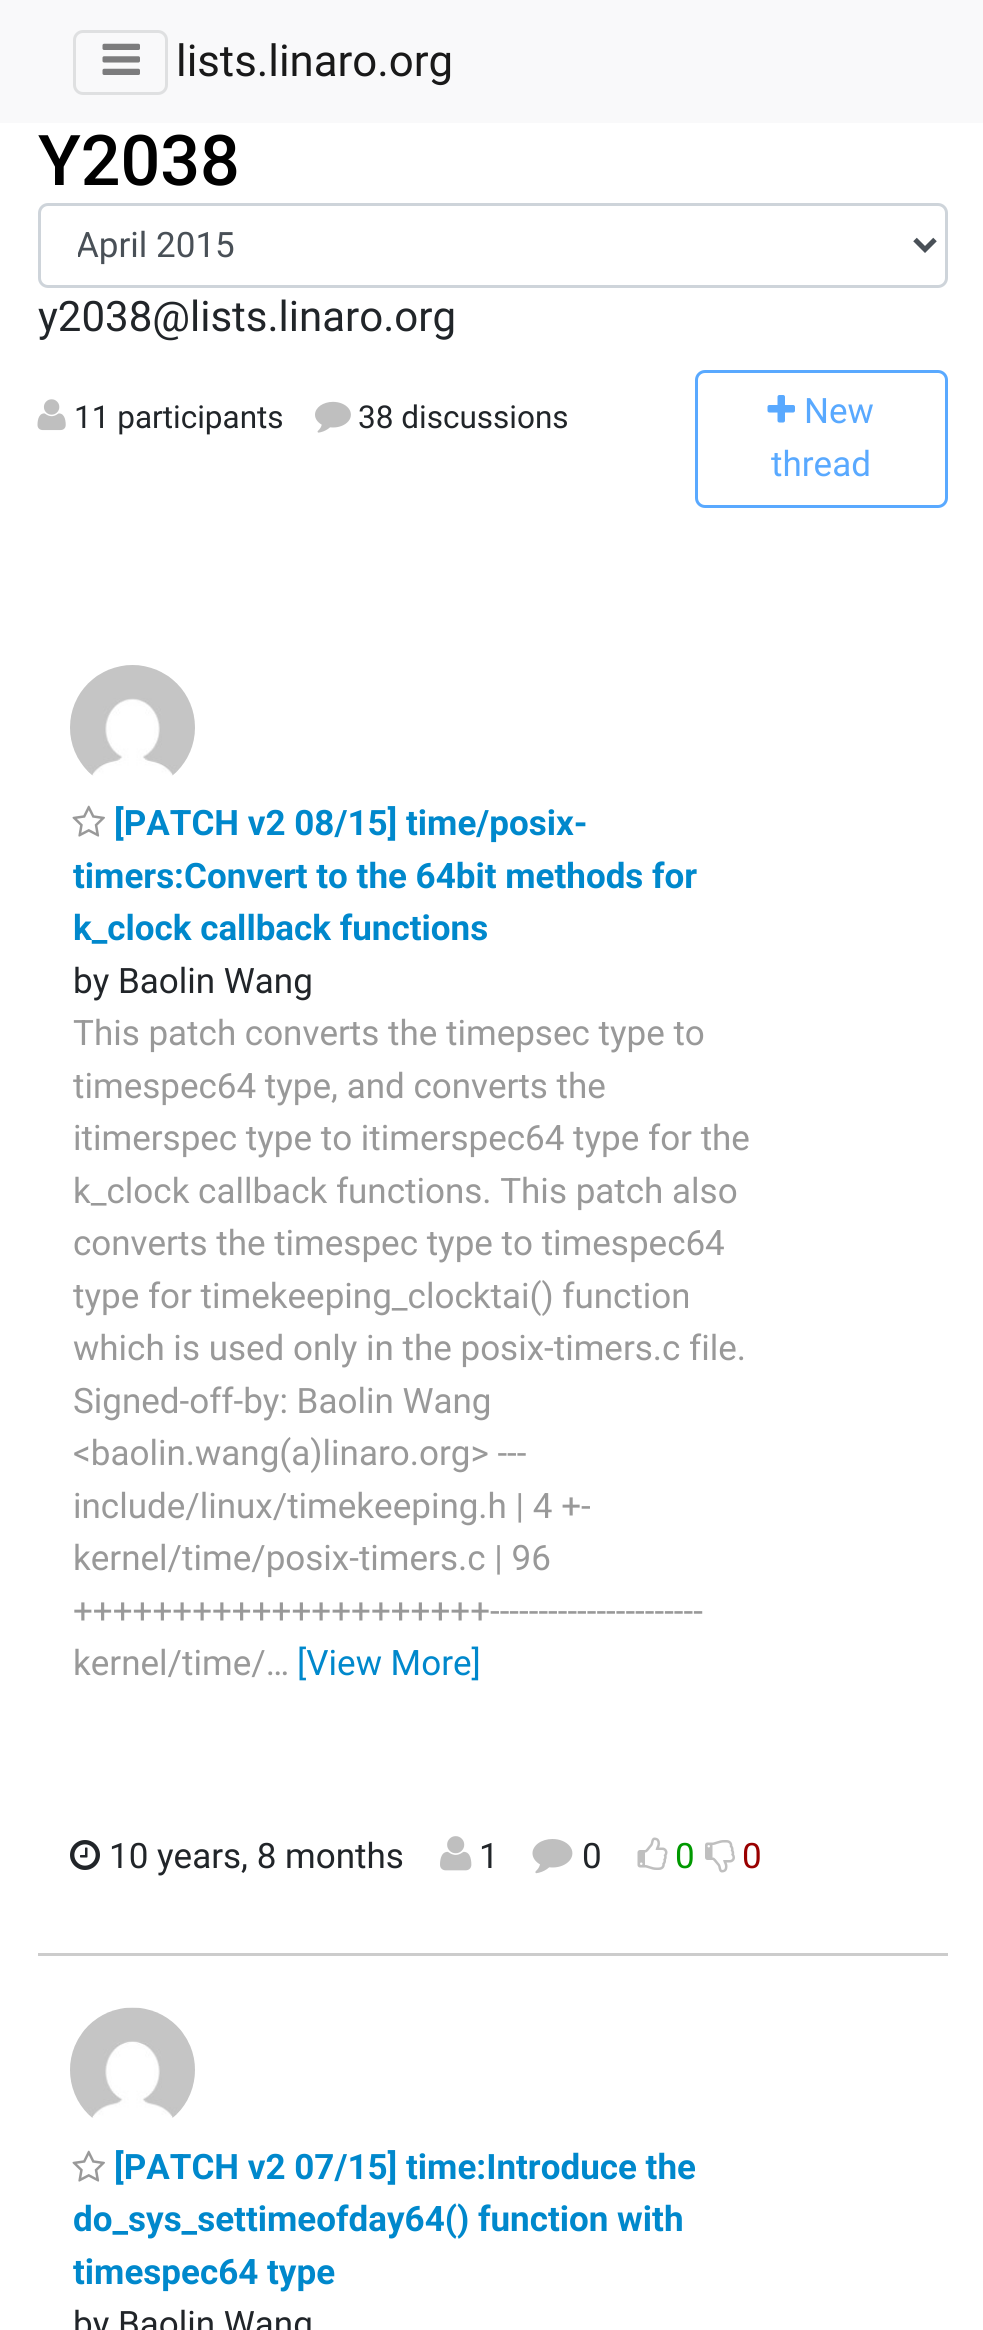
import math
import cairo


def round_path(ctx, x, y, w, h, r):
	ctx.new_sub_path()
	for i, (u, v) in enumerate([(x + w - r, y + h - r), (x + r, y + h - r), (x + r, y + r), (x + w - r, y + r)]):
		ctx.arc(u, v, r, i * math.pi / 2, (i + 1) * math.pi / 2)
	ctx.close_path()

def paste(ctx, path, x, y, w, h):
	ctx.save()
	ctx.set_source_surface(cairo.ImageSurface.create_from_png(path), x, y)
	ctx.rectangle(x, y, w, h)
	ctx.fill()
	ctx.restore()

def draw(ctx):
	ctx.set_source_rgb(1, 1, 1)
	ctx.paint()
	ctx.set_source_rgb(0.973, 0.976, 0.98)
	ctx.rectangle(0, 0, 983, 123)
	ctx.fill()
	round_path(ctx, 74.5, 31.5, 92, 62, 8.5)
	ctx.set_source_rgb(0.875, 0.878, 0.882)
	ctx.set_line_width(3)
	ctx.stroke()
	paste(ctx, 'media/1.png', 102, 43, 38, 32)
	ctx.select_font_face('Roboto')
	ctx.set_font_size(43.75)
	ctx.set_source_rgb(0.098, 0.098, 0.098)
	ctx.move_to(176, 76)
	ctx.show_text('lists.linaro.org')
	ctx.select_font_face('Roboto Medium')
	ctx.set_font_size(70)
	ctx.set_source_rgb(0, 0, 0)
	ctx.move_to(38, 185)
	ctx.show_text('Y2038')
	round_path(ctx, 39.5, 204.5, 907, 82, 8.5)
	ctx.set_source_rgb(0.808, 0.831, 0.855)
	ctx.stroke()
	ctx.new_path()
	ctx.move_to(915, 239.5)
	ctx.line_to(925, 249.5)
	ctx.line_to(935, 239.5)
	ctx.set_source_rgb(0.286, 0.314, 0.341)
	ctx.set_line_width(5)
	ctx.stroke()
	ctx.save()
	ctx.rectangle(78, 223, 802, 45)
	ctx.clip()
	ctx.select_font_face('Roboto')
	ctx.set_font_size(35)
	ctx.move_to(76, 257)
	ctx.show_text('April 2015')
	ctx.restore()
	ctx.select_font_face('Roboto')
	ctx.set_font_size(42)
	ctx.set_source_rgb(0.129, 0.145, 0.161)
	ctx.move_to(38, 331)
	ctx.show_text('y2038@lists.linaro.org')
	paste(ctx, 'media/2.png', 37, 399, 29, 32)
	ctx.set_font_size(31.5)
	ctx.move_to(74, 428)
	ctx.show_text('11 participants')
	paste(ctx, 'media/3.png', 315, 401, 36, 32)
	ctx.move_to(358, 428)
	ctx.show_text('38 discussions')
	round_path(ctx, 696.5, 371.5, 250, 135, 8.5)
	ctx.set_source_rgb(0.349, 0.663, 1)
	ctx.set_line_width(3)
	ctx.stroke()
	paste(ctx, 'media/4.png', 767, 395, 28, 28)
	ctx.set_font_size(35)
	ctx.move_to(804, 423)
	ctx.show_text('New')
	ctx.move_to(771, 476)
	ctx.show_text('thread')
	ctx.set_source_rgb(0.8, 0.8, 0.8)
	ctx.rectangle(38, 1953, 910, 3)
	ctx.fill()
	paste(ctx, 'media/5.png', 70, 665, 125, 111)
	paste(ctx, 'media/6.png', 72, 805, 33, 32)
	ctx.select_font_face('Roboto', cairo.FONT_SLANT_NORMAL, cairo.FONT_WEIGHT_BOLD)
	ctx.set_source_rgb(0, 0.533, 0.8)
	for x, y, s in [
		(114, 835, '[PATCH v2 08/15] time/posix-'),
		(73, 888, 'timers:Convert to the 64bit methods for'),
		(73, 940, 'k_clock callback functions'),
	]:
		ctx.move_to(x, y)
		ctx.show_text(s)
	ctx.select_font_face('Roboto')
	ctx.set_source_rgb(0.129, 0.145, 0.161)
	ctx.move_to(73, 993)
	ctx.show_text('by Baolin Wang')
	ctx.set_source_rgb(0.6, 0.6, 0.6)
	for x, y, s in [
		(73, 1045, 'This patch converts the timepsec type to'),
		(73, 1098, 'timespec64 type, and converts the'),
		(73, 1150, 'itimerspec type to itimerspec64 type for the'),
		(73, 1203, 'k_clock callback functions. This patch also'),
		(73, 1255, 'converts the timespec type to timespec64'),
		(73, 1308, 'type for timekeeping_clocktai() function'),
		(73, 1360, 'which is used only in the posix-timers.c file.'),
		(73, 1413, 'Signed-off-by: Baolin Wang'),
		(73, 1465, '<baolin.wang(a)linaro.org> ---'),
		(73, 1518, 'include/linux/timekeeping.h | 4 +-'),
		(73, 1570, 'kernel/time/posix-timers.c | 96'),
		(73, 1623, '+++++++++++++++++++++----------------------'),
		(73, 1675, 'kernel/time/…'),
	]:
		ctx.move_to(x, y)
		ctx.show_text(s)
	ctx.set_source_rgb(0, 0.533, 0.8)
	ctx.move_to(297, 1675)
	ctx.show_text('[View More]')
	paste(ctx, 'media/7.png', 70, 1840, 30, 30)
	ctx.set_source_rgb(0.129, 0.145, 0.161)
	ctx.move_to(109, 1868)
	ctx.show_text('10 years, 8 months')
	paste(ctx, 'media/8.png', 440, 1836, 32, 35)
	ctx.move_to(479, 1868)
	ctx.show_text('1')
	paste(ctx, 'media/9.png', 532, 1839, 41, 35)
	ctx.move_to(582, 1868)
	ctx.show_text('0')
	paste(ctx, 'media/10.png', 637, 1837, 31, 33)
	ctx.set_source_rgb(0, 0.6, 0)
	ctx.move_to(675, 1868)
	ctx.show_text('0')
	paste(ctx, 'media/11.png', 705, 1840, 30, 33)
	ctx.set_source_rgb(0.6, 0, 0)
	ctx.move_to(742, 1868)
	ctx.show_text('0')
	paste(ctx, 'media/12.png', 70, 2007, 125, 111)
	paste(ctx, 'media/6.png', 72, 2150, 33, 32)
	ctx.select_font_face('Roboto', cairo.FONT_SLANT_NORMAL, cairo.FONT_WEIGHT_BOLD)
	ctx.set_source_rgb(0, 0.533, 0.8)
	for x, y, s in [
		(114, 2179, '[PATCH v2 07/15] time:Introduce the'),
		(73, 2231, 'do_sys_settimeofday64() function with'),
		(73, 2284, 'timespec64 type'),
	]:
		ctx.move_to(x, y)
		ctx.show_text(s)
	ctx.select_font_face('Roboto')
	ctx.set_source_rgb(0.129, 0.145, 0.161)
	ctx.move_to(73, 2336)
	ctx.show_text('by Baolin Wang')


surface = cairo.ImageSurface(cairo.FORMAT_RGB24, 983, 2330)
ctx = cairo.Context(surface)
options = cairo.FontOptions()
options.set_hint_metrics(cairo.HINT_METRICS_OFF)
options.set_hint_style(cairo.HINT_STYLE_NONE)
ctx.set_font_options(options)
ctx.set_miter_limit(4)
draw(ctx)
surface.write_to_png('image.png')
